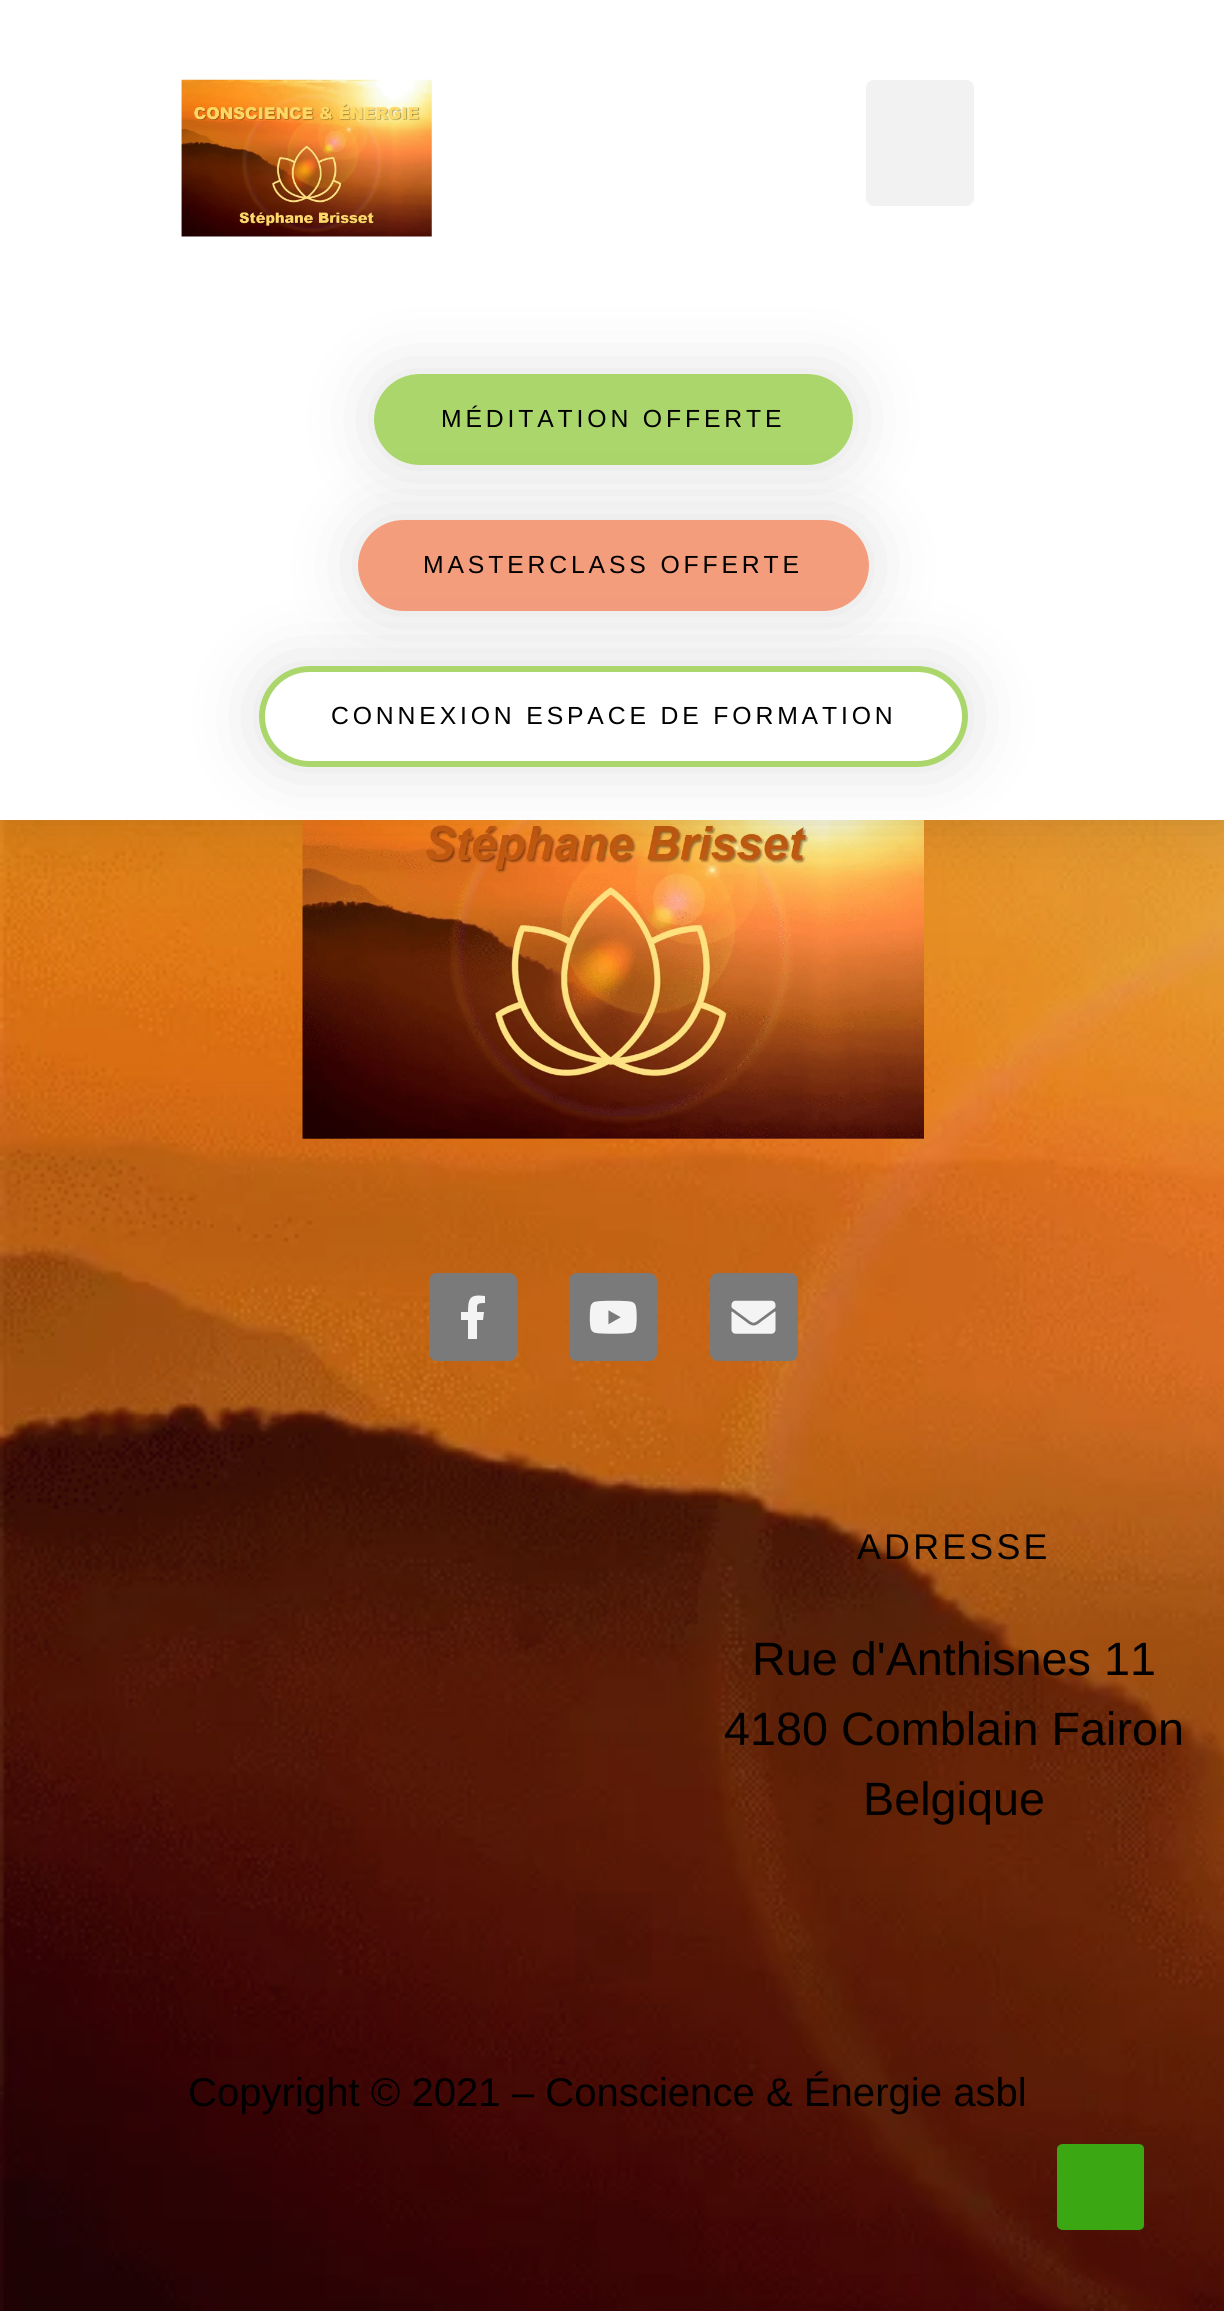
import math
import cairo


def write_spaced(ctx, x, y, s, letter, word):
	ctx.move_to(x, y)
	for ch in s:
		ctx.show_text(ch)
		ctx.rel_move_to(letter + word * (ch == ' '), 0)

def round_path(ctx, x, y, w, h, r):
	ctx.new_sub_path()
	for i, (u, v) in enumerate([(x + w - r, y + h - r), (x + r, y + h - r), (x + r, y + r), (x + w - r, y + r)]):
		ctx.arc(u, v, r, i * math.pi / 2, (i + 1) * math.pi / 2)
	ctx.close_path()

def blur_box(ctx, x, y, w, h, r, blur, alpha):
	ctx.push_group_with_content(cairo.CONTENT_ALPHA)
	ctx.set_operator(cairo.OPERATOR_SOURCE)
	for i in range(15, -16, -2):
		e = blur * i / 6
		if min(w, h) + 2 * e > 0:
			ctx.set_source_rgba(0, 0, 0, alpha * math.erfc((i - 1) / 8.5) / 2)
			round_path(ctx, x - e, y - e, w + 2 * e, h + 2 * e, max(0, min(r + e + blur * .6, min(w, h) / 2 + e)))
			ctx.fill()
	ctx.mask(ctx.pop_group())

def paste(ctx, path, x, y, w, h):
	ctx.save()
	ctx.set_source_surface(cairo.ImageSurface.create_from_png(path), x, y)
	ctx.rectangle(x, y, w, h)
	ctx.fill()
	ctx.restore()

def draw(ctx):
	ctx.set_source_rgb(1, 1, 1)
	ctx.paint()
	paste(ctx, 'media/2.png', 0, 820, 1224, 1491)
	gradient = cairo.LinearGradient(613, -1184, 613, 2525)
	gradient.add_color_stop_rgba(0, 0, 0.059, 0.169, 0.08)
	gradient.add_color_stop_rgba(0.76, 0, 0.059, 0.169, 0.1)
	ctx.set_source(gradient)
	ctx.rectangle(0, 820, 1224, 1491)
	ctx.fill()
	paste(ctx, 'media/3.png', 302, 820, 622, 319)
	ctx.set_source_rgb(0, 0, 0)
	blur_box(ctx, 0, 0, 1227, 820, 0, 33, 0.15)
	ctx.set_source_rgb(1, 1, 1)
	ctx.rectangle(0, 0, 1224, 820)
	ctx.fill()
	paste(ctx, 'media/1.png', 181, 79, 251, 158)
	ctx.set_source_rgb(0.949, 0.949, 0.949)
	round_path(ctx, 866, 80, 108, 126, 8)
	ctx.fill()
	ctx.save()
	ctx.set_fill_rule(cairo.FILL_RULE_EVEN_ODD)
	ctx.new_path()
	ctx.move_to(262, 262)
	ctx.line_to(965, 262)
	ctx.line_to(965, 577)
	ctx.line_to(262, 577)
	ctx.close_path()
	ctx.move_to(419.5, 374)
	ctx.line_to(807.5, 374)
	ctx.curve_to(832.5, 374, 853, 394.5, 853, 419.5)
	ctx.curve_to(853, 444.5, 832.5, 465, 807.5, 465)
	ctx.line_to(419.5, 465)
	ctx.curve_to(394.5, 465, 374, 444.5, 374, 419.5)
	ctx.curve_to(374, 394.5, 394.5, 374, 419.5, 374)
	ctx.close_path()
	ctx.clip()
	ctx.set_source_rgb(0, 0, 0)
	blur_box(ctx, 374, 374, 479, 91, 45.5, 37, 0.12)
	ctx.restore()
	ctx.set_source_rgba(0.525, 0.765, 0.161, 0.69)
	round_path(ctx, 374, 374, 479, 91, 45.5)
	ctx.fill()
	ctx.select_font_face('Liberation Sans')
	ctx.set_font_size(24.75)
	ctx.set_source_rgb(0, 0, 0)
	write_spaced(ctx, 441, 427, 'MÉDITATION OFFERTE', 3.85, 0)
	ctx.save()
	ctx.set_fill_rule(cairo.FILL_RULE_EVEN_ODD)
	ctx.new_path()
	ctx.move_to(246, 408)
	ctx.line_to(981, 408)
	ctx.line_to(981, 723)
	ctx.line_to(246, 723)
	ctx.close_path()
	ctx.move_to(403.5, 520)
	ctx.line_to(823.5, 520)
	ctx.curve_to(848.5, 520, 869, 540.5, 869, 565.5)
	ctx.curve_to(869, 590.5, 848.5, 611, 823.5, 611)
	ctx.line_to(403.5, 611)
	ctx.curve_to(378.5, 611, 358, 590.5, 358, 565.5)
	ctx.curve_to(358, 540.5, 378.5, 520, 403.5, 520)
	ctx.close_path()
	ctx.clip()
	ctx.set_source_rgb(0, 0, 0)
	blur_box(ctx, 358, 520, 511, 91, 45.5, 37, 0.12)
	ctx.restore()
	ctx.set_source_rgba(0.937, 0.486, 0.322, 0.75)
	round_path(ctx, 358, 520, 511, 91, 45.5)
	ctx.fill()
	ctx.set_source_rgb(0, 0, 0)
	write_spaced(ctx, 423, 573, 'MASTERCLASS OFFERTE', 3.85, 0)
	ctx.set_source_rgb(0, 0, 0)
	blur_box(ctx, 259, 666, 709, 101, 50.5, 37, 0.12)
	ctx.set_source_rgb(1, 1, 1)
	round_path(ctx, 259, 666, 709, 101, 50.5)
	ctx.fill()
	round_path(ctx, 262, 669, 703, 95, 47.5)
	ctx.set_source_rgba(0.525, 0.765, 0.161, 0.69)
	ctx.set_line_width(6)
	ctx.stroke()
	ctx.set_source_rgb(0, 0, 0)
	write_spaced(ctx, 331, 724, 'CONNEXION ESPACE DE FORMATION', 3.85, 0)
	ctx.set_source_rgb(0.478, 0.478, 0.478)
	round_path(ctx, 429, 1273, 88, 88, 8)
	ctx.fill()
	ctx.set_source_rgb(0.957, 0.957, 0.957)
	ctx.new_path()
	ctx.move_to(483, 1320)
	ctx.line_to(477, 1320)
	ctx.line_to(477, 1339)
	ctx.line_to(468, 1339)
	ctx.line_to(468, 1320)
	ctx.line_to(461, 1320)
	ctx.line_to(461, 1312)
	ctx.line_to(468, 1312)
	ctx.curve_to(468, 1298, 470, 1294, 485, 1296)
	ctx.line_to(485, 1303)
	ctx.curve_to(476, 1303, 477, 1304, 477, 1312)
	ctx.line_to(484, 1312)
	ctx.close_path()
	ctx.fill()
	ctx.set_source_rgb(0.478, 0.478, 0.478)
	round_path(ctx, 569, 1273, 88, 88, 8)
	ctx.fill()
	paste(ctx, 'media/4.png', 589, 1300, 48, 34)
	round_path(ctx, 710, 1273, 88, 88, 8)
	ctx.fill()
	paste(ctx, 'media/5.png', 731, 1300, 45, 34)
	ctx.set_font_size(35.75)
	ctx.set_source_rgb(0, 0, 0)
	write_spaced(ctx, 857, 1559, 'ADRESSE', 3.25, 0)
	ctx.set_font_size(46.75)
	for x, y, s in [
		(752, 1675, 'Rue d\'Anthisnes 11'),
		(724, 1745, '4180 Comblain Fairon'),
		(863, 1815, 'Belgique'),
	]:
		ctx.move_to(x, y)
		ctx.show_text(s)
	ctx.set_source_rgba(0, 0, 0, 0.05)
	ctx.rectangle(575, 1892, 77, 91)
	ctx.fill()
	ctx.set_font_size(40.1)
	ctx.set_source_rgb(0, 0, 0)
	ctx.move_to(188, 2106)
	ctx.show_text('Copyright © 2021 – Conscience & Énergie asbl')
	ctx.set_source_rgb(0.231, 0.655, 0.071)
	ctx.new_path()
	ctx.move_to(1138, 2230)
	ctx.line_to(1063, 2230)
	ctx.curve_to(1060, 2230, 1057, 2228, 1057, 2225)
	ctx.line_to(1057, 2149)
	ctx.curve_to(1057, 2146, 1060, 2144, 1063, 2144)
	ctx.line_to(1138, 2144)
	ctx.curve_to(1142, 2144, 1144, 2146, 1144, 2149)
	ctx.line_to(1144, 2225)
	ctx.curve_to(1144, 2228, 1142, 2230, 1138, 2230)
	ctx.close_path()
	ctx.fill()


surface = cairo.ImageSurface(cairo.FORMAT_RGB24, 1224, 2311)
ctx = cairo.Context(surface)
options = cairo.FontOptions()
options.set_hint_metrics(cairo.HINT_METRICS_OFF)
options.set_hint_style(cairo.HINT_STYLE_NONE)
ctx.set_font_options(options)
ctx.set_miter_limit(4)
draw(ctx)
surface.write_to_png('image.png')
